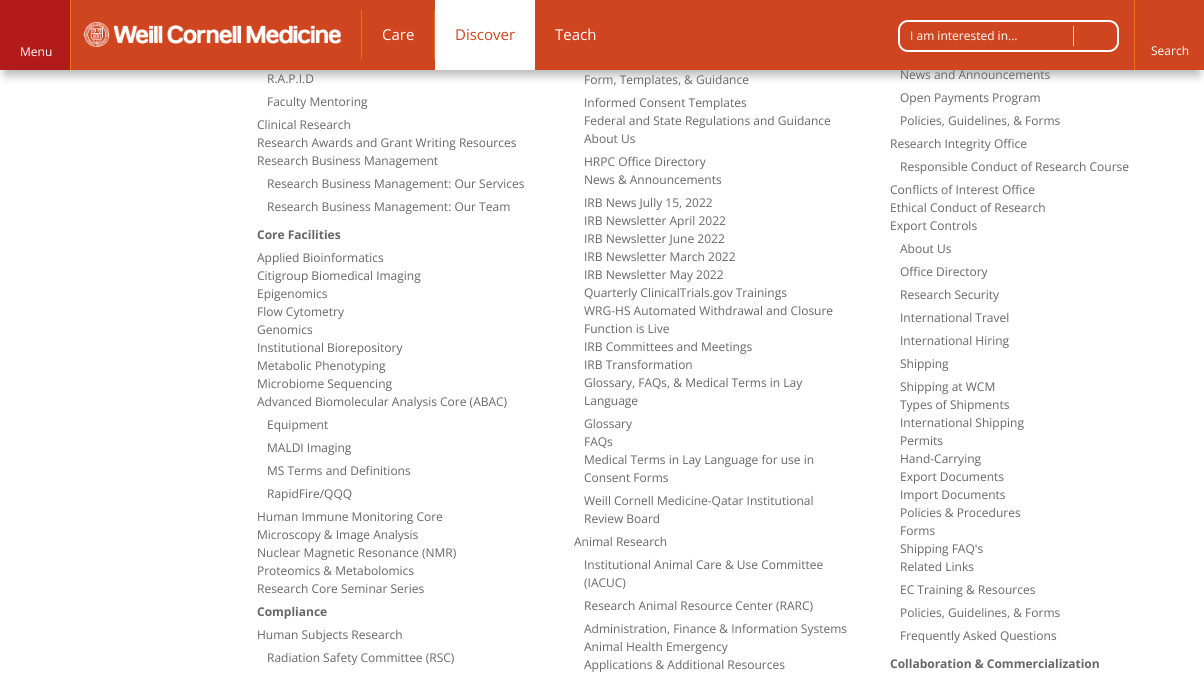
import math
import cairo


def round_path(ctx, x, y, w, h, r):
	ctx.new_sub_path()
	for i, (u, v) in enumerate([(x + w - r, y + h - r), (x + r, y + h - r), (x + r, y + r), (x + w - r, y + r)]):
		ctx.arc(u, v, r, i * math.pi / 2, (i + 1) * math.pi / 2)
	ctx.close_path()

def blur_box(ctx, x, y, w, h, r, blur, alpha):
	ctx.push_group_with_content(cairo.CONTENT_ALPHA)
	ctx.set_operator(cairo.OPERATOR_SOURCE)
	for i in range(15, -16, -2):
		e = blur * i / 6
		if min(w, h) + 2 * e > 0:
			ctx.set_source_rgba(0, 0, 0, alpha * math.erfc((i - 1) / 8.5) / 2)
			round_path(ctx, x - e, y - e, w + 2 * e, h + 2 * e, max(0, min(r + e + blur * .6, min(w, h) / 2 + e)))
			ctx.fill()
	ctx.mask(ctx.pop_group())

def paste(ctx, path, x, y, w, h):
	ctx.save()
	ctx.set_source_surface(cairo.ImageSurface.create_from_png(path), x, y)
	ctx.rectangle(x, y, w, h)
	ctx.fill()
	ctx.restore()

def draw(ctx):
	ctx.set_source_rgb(1, 1, 1)
	ctx.paint()
	ctx.set_source_rgb(0, 0, 0)
	blur_box(ctx, 5, 15, 1194, 60, 0, 5, 0.3)
	ctx.select_font_face('Open Sans')
	ctx.set_font_size(12)
	ctx.set_source_rgb(0.4, 0.4, 0.4)
	ctx.move_to(900, 79)
	ctx.show_text('News and Announcements')
	ctx.set_source_rgb(0.812, 0.271, 0.125)
	ctx.rectangle(71, 0, 1133, 70)
	ctx.fill()
	ctx.set_source_rgb(0.702, 0.106, 0.106)
	ctx.rectangle(0, 0, 70, 70)
	ctx.fill()
	ctx.set_source_rgb(0.906, 0.459, 0.114)
	ctx.rectangle(70, 0, 1, 70)
	ctx.fill()
	ctx.set_source_rgb(1, 1, 1)
	ctx.move_to(20, 56)
	ctx.show_text('Menu')
	paste(ctx, 'media/1.png', 83, 22, 258, 25)
	ctx.set_source_rgb(0.906, 0.459, 0.114)
	ctx.rectangle(434, 10, 1, 49)
	ctx.fill()
	ctx.rectangle(361, 10, 1, 49)
	ctx.fill()
	ctx.set_font_size(15)
	ctx.set_source_rgb(1, 1, 1)
	ctx.move_to(382, 40)
	ctx.show_text('Care')
	ctx.rectangle(435, 0, 100, 70)
	ctx.fill()
	ctx.set_source_rgb(0.812, 0.271, 0.125)
	ctx.move_to(455, 40)
	ctx.show_text('Discover')
	ctx.set_source_rgb(1, 1, 1)
	ctx.move_to(555, 40)
	ctx.show_text('Teach')
	round_path(ctx, 899, 21, 219, 30, 9)
	ctx.stroke()
	ctx.set_font_size(12)
	ctx.move_to(910, 40)
	ctx.show_text('I am interested in...')
	ctx.set_source_rgb(0.867, 0.867, 0.867)
	ctx.rectangle(1073, 26, 1, 20)
	ctx.fill()
	ctx.set_source_rgb(0.906, 0.459, 0.114)
	ctx.rectangle(1134, 0, 1, 70)
	ctx.fill()
	ctx.set_source_rgb(1, 1, 1)
	ctx.move_to(1151, 55)
	ctx.show_text('Search')
	ctx.set_source_rgb(0.4, 0.4, 0.4)
	for x, y, s in [
		(584, 84, 'Form, Templates, & Guidance'),
		(584, 107, 'Informed Consent Templates'),
		(584, 125, 'Federal and State Regulations and Guidance'),
		(584, 143, 'About Us'),
		(584, 166, 'HRPC Office Directory'),
		(584, 184, 'News & Announcements'),
		(584, 207, 'IRB News Jully 15, 2022'),
		(584, 225, 'IRB Newsletter April 2022'),
		(584, 243, 'IRB Newsletter June 2022'),
		(584, 261, 'IRB Newsletter March 2022'),
		(584, 279, 'IRB Newsletter May 2022'),
		(584, 297, 'Quarterly ClinicalTrials.gov Trainings'),
		(584, 315, 'WRG-HS Automated Withdrawal and Closure'),
		(584, 333, 'Function is Live'),
		(584, 351, 'IRB Committees and Meetings'),
		(584, 369, 'IRB Transformation'),
		(584, 387, 'Glossary, FAQs, & Medical Terms in Lay'),
		(584, 405, 'Language'),
		(584, 428, 'Glossary'),
		(584, 446, 'FAQs'),
		(584, 464, 'Medical Terms in Lay Language for use in'),
		(584, 482, 'Consent Forms'),
		(584, 505, 'Weill Cornell Medicine-Qatar Institutional'),
		(584, 523, 'Review Board'),
		(267, 662, 'Radiation Safety Committee (RSC)'),
		(257, 639, 'Human Subjects Research'),
		(900, 102, 'Open Payments Program'),
		(900, 125, 'Policies, Guidelines, & Forms'),
		(890, 148, 'Research Integrity Office'),
		(900, 171, 'Responsible Conduct of Research Course'),
		(890, 194, 'Conflicts of Interest Office'),
		(890, 212, 'Ethical Conduct of Research'),
		(574, 546, 'Animal Research'),
		(584, 569, 'Institutional Animal Care & Use Committee'),
		(584, 587, '(IACUC)'),
		(584, 610, 'Research Animal Resource Center (RARC)'),
		(584, 633, 'Administration, Finance & Information Systems'),
		(584, 651, 'Animal Health Emergency'),
		(584, 669, 'Applications & Additional Resources'),
		(890, 230, 'Export Controls'),
		(900, 253, 'About Us'),
		(900, 276, 'Office Directory'),
		(900, 299, 'Research Security'),
		(900, 322, 'International Travel'),
		(900, 345, 'International Hiring'),
		(900, 368, 'Shipping'),
		(900, 391, 'Shipping at WCM'),
		(900, 409, 'Types of Shipments'),
		(900, 427, 'International Shipping'),
		(900, 445, 'Permits'),
		(900, 463, 'Hand-Carrying'),
		(900, 481, 'Export Documents'),
		(900, 499, 'Import Documents'),
		(900, 517, 'Policies & Procedures'),
		(900, 535, 'Forms'),
		(900, 553, 'Shipping FAQ\'s'),
		(900, 571, 'Related Links'),
		(900, 594, 'EC Training & Resources'),
		(900, 617, 'Policies, Guidelines, & Forms'),
		(900, 640, 'Frequently Asked Questions'),
	]:
		ctx.move_to(x, y)
		ctx.show_text(s)
	ctx.select_font_face('Open Sans', cairo.FONT_SLANT_NORMAL, cairo.FONT_WEIGHT_BOLD)
	ctx.move_to(257, 616)
	ctx.show_text('Compliance')
	ctx.select_font_face('Open Sans')
	for x, y, s in [
		(267, 83, 'R.A.P.I.D'),
		(267, 106, 'Faculty Mentoring'),
		(257, 129, 'Clinical Research'),
		(257, 147, 'Research Awards and Grant Writing Resources'),
		(257, 165, 'Research Business Management'),
		(267, 188, 'Research Business Management: Our Services'),
		(267, 211, 'Research Business Management: Our Team'),
	]:
		ctx.move_to(x, y)
		ctx.show_text(s)
	ctx.select_font_face('Open Sans', cairo.FONT_SLANT_NORMAL, cairo.FONT_WEIGHT_BOLD)
	ctx.move_to(257, 239)
	ctx.show_text('Core Facilities')
	ctx.select_font_face('Open Sans')
	for x, y, s in [
		(257, 262, 'Applied Bioinformatics'),
		(257, 280, 'Citigroup Biomedical Imaging'),
		(257, 298, 'Epigenomics'),
		(257, 316, 'Flow Cytometry'),
		(257, 334, 'Genomics'),
		(257, 352, 'Institutional Biorepository'),
		(257, 370, 'Metabolic Phenotyping'),
		(257, 388, 'Microbiome Sequencing'),
		(257, 406, 'Advanced Biomolecular Analysis Core (ABAC)'),
		(267, 429, 'Equipment'),
		(267, 452, 'MALDI Imaging'),
		(267, 475, 'MS Terms and Definitions'),
		(267, 498, 'RapidFire/QQQ'),
		(257, 521, 'Human Immune Monitoring Core'),
		(257, 539, 'Microscopy & Image Analysis'),
		(257, 557, 'Nuclear Magnetic Resonance (NMR)'),
		(257, 575, 'Proteomics & Metabolomics'),
		(257, 593, 'Research Core Seminar Series'),
	]:
		ctx.move_to(x, y)
		ctx.show_text(s)
	ctx.select_font_face('Open Sans', cairo.FONT_SLANT_NORMAL, cairo.FONT_WEIGHT_BOLD)
	ctx.move_to(890, 668)
	ctx.show_text('Collaboration & Commercialization')


surface = cairo.ImageSurface(cairo.FORMAT_RGB24, 1204, 681)
ctx = cairo.Context(surface)
options = cairo.FontOptions()
options.set_hint_metrics(cairo.HINT_METRICS_OFF)
options.set_hint_style(cairo.HINT_STYLE_NONE)
ctx.set_font_options(options)
ctx.set_miter_limit(4)
draw(ctx)
surface.write_to_png('image.png')
